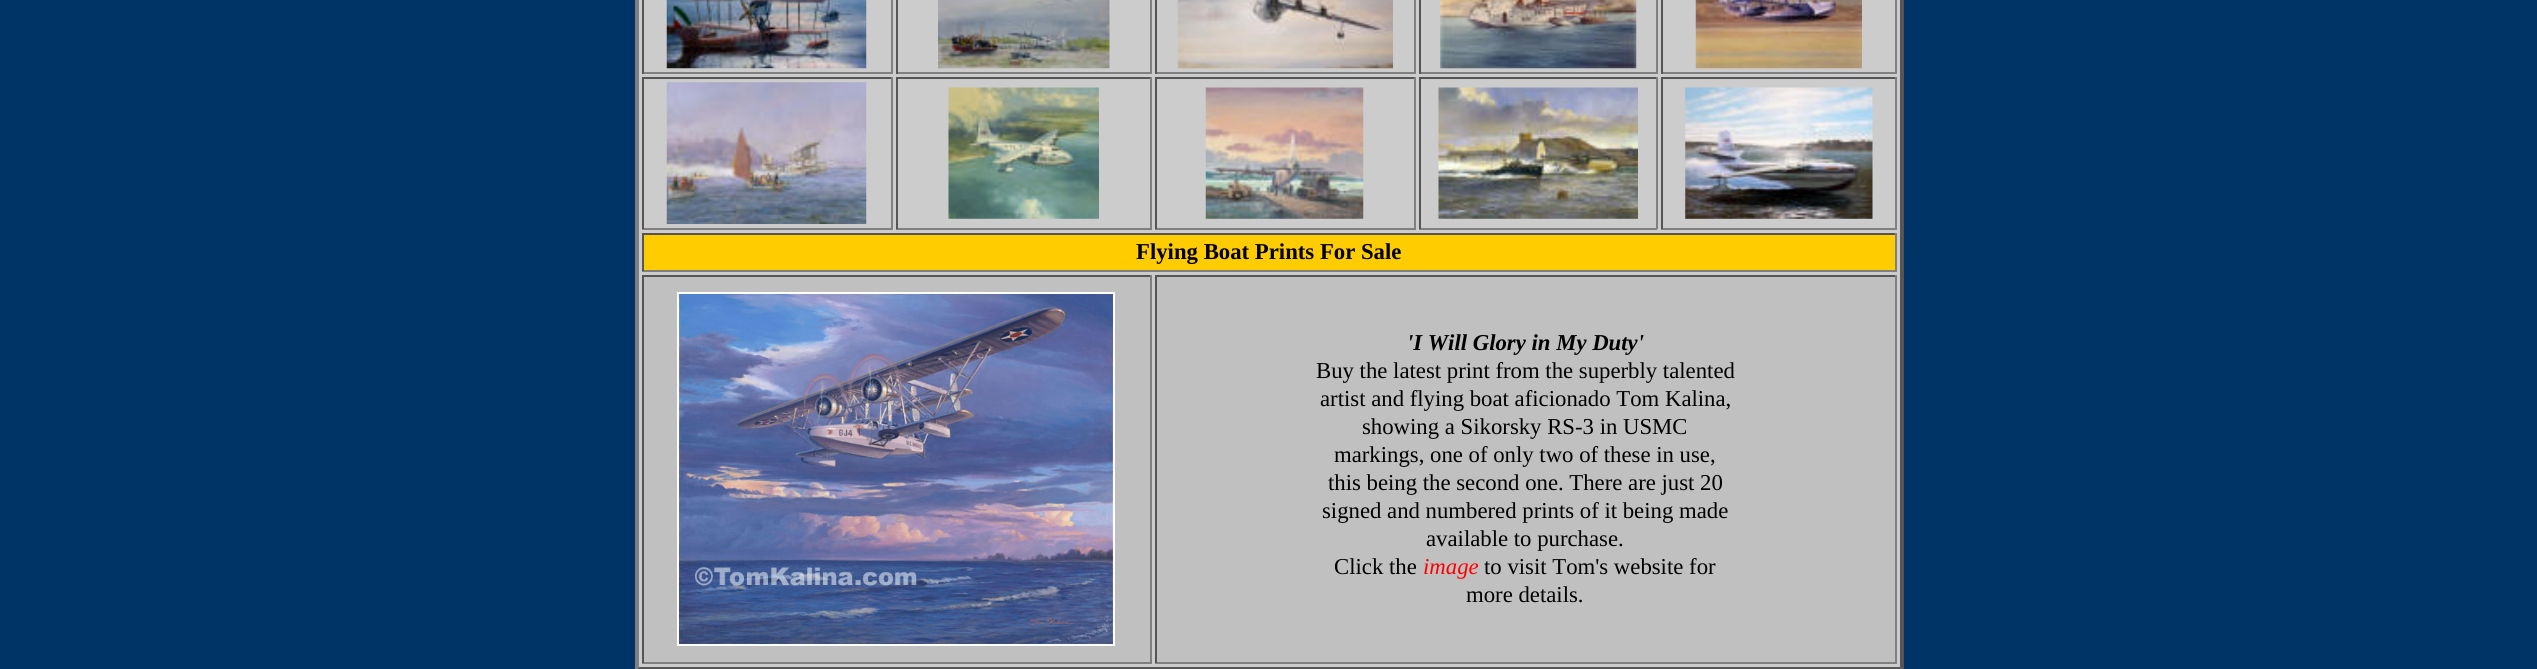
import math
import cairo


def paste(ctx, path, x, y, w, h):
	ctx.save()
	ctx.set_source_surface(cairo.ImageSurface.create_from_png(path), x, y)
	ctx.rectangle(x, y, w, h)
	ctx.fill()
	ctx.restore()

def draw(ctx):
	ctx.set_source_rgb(0, 0.2, 0.4)
	ctx.paint()
	ctx.set_source_rgb(0.8, 0.8, 0.8)
	ctx.rectangle(636, 0, 1267, 669)
	ctx.fill()
	ctx.set_source_rgb(0.333, 0.333, 0.333)
	ctx.new_path()
	ctx.move_to(1904, -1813)
	ctx.line_to(1904, 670)
	ctx.line_to(1900, 667)
	ctx.line_to(1900, -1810)
	ctx.close_path()
	ctx.fill()
	ctx.new_path()
	ctx.move_to(1904, 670)
	ctx.line_to(635, 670)
	ctx.line_to(639, 667)
	ctx.line_to(1900, 667)
	ctx.close_path()
	ctx.fill()
	ctx.set_source_rgb(0.502, 0.502, 0.502)
	ctx.new_path()
	ctx.move_to(635, 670)
	ctx.line_to(635, -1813)
	ctx.line_to(639, -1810)
	ctx.line_to(639, 667)
	ctx.close_path()
	ctx.fill()
	ctx.rectangle(891, 0, 2, 74)
	ctx.rectangle(642, 72, 251, 2)
	ctx.fill()
	ctx.set_source_rgb(0.333, 0.333, 0.333)
	ctx.rectangle(642, 0, 2, 74)
	ctx.fill()
	paste(ctx, 'media/1.png', 666, 0, 201, 69)
	ctx.set_source_rgb(0.502, 0.502, 0.502)
	ctx.rectangle(1150, 0, 2, 74)
	ctx.rectangle(896, 72, 256, 2)
	ctx.fill()
	ctx.set_source_rgb(0.333, 0.333, 0.333)
	ctx.rectangle(896, 0, 2, 74)
	ctx.fill()
	paste(ctx, 'media/2.png', 938, 0, 172, 69)
	ctx.set_source_rgb(0.502, 0.502, 0.502)
	ctx.rectangle(1414, 0, 2, 74)
	ctx.rectangle(1155, 72, 261, 2)
	ctx.fill()
	ctx.set_source_rgb(0.333, 0.333, 0.333)
	ctx.rectangle(1155, 0, 2, 74)
	ctx.fill()
	paste(ctx, 'media/3.png', 1177, 0, 216, 69)
	ctx.set_source_rgb(0.502, 0.502, 0.502)
	ctx.rectangle(1656, 0, 2, 74)
	ctx.rectangle(1419, 72, 238, 2)
	ctx.fill()
	ctx.set_source_rgb(0.333, 0.333, 0.333)
	ctx.rectangle(1419, 0, 2, 74)
	ctx.fill()
	paste(ctx, 'media/4.png', 1440, 0, 197, 69)
	ctx.set_source_rgb(0.502, 0.502, 0.502)
	ctx.rectangle(1895, 0, 2, 74)
	ctx.rectangle(1661, 72, 236, 2)
	ctx.fill()
	ctx.set_source_rgb(0.333, 0.333, 0.333)
	ctx.rectangle(1661, 0, 2, 74)
	ctx.fill()
	paste(ctx, 'media/5.png', 1695, 0, 167, 69)
	ctx.rectangle(642, 77, 251, 2)
	ctx.fill()
	ctx.set_source_rgb(0.502, 0.502, 0.502)
	ctx.rectangle(891, 77, 2, 152)
	ctx.rectangle(642, 228, 251, 2)
	ctx.fill()
	ctx.set_source_rgb(0.333, 0.333, 0.333)
	ctx.rectangle(642, 77, 2, 152)
	ctx.fill()
	paste(ctx, 'media/6.png', 666, 82, 201, 142)
	ctx.rectangle(896, 77, 256, 2)
	ctx.fill()
	ctx.set_source_rgb(0.502, 0.502, 0.502)
	ctx.rectangle(1150, 77, 2, 152)
	ctx.rectangle(896, 228, 256, 2)
	ctx.fill()
	ctx.set_source_rgb(0.333, 0.333, 0.333)
	ctx.rectangle(896, 77, 2, 152)
	ctx.fill()
	paste(ctx, 'media/7.png', 948, 87, 151, 132)
	ctx.rectangle(1155, 77, 261, 2)
	ctx.fill()
	ctx.set_source_rgb(0.502, 0.502, 0.502)
	ctx.rectangle(1414, 77, 2, 152)
	ctx.rectangle(1155, 228, 261, 2)
	ctx.fill()
	ctx.set_source_rgb(0.333, 0.333, 0.333)
	ctx.rectangle(1155, 77, 2, 152)
	ctx.fill()
	paste(ctx, 'media/8.png', 1205, 87, 159, 132)
	ctx.rectangle(1419, 77, 238, 2)
	ctx.fill()
	ctx.set_source_rgb(0.502, 0.502, 0.502)
	ctx.rectangle(1656, 77, 2, 152)
	ctx.rectangle(1419, 228, 238, 2)
	ctx.fill()
	ctx.set_source_rgb(0.333, 0.333, 0.333)
	ctx.rectangle(1419, 77, 2, 152)
	ctx.fill()
	paste(ctx, 'media/9.png', 1438, 87, 200, 132)
	ctx.rectangle(1661, 77, 236, 2)
	ctx.fill()
	ctx.set_source_rgb(0.502, 0.502, 0.502)
	ctx.rectangle(1895, 77, 2, 152)
	ctx.rectangle(1661, 228, 236, 2)
	ctx.fill()
	ctx.set_source_rgb(0.333, 0.333, 0.333)
	ctx.rectangle(1661, 77, 2, 152)
	ctx.fill()
	paste(ctx, 'media/10.png', 1685, 87, 188, 132)
	ctx.set_source_rgb(1, 0.8, 0)
	ctx.rectangle(644, 235, 1251, 35)
	ctx.fill()
	ctx.set_source_rgb(0.333, 0.333, 0.333)
	ctx.rectangle(642, 233, 1255, 2)
	ctx.fill()
	ctx.set_source_rgb(0.502, 0.502, 0.502)
	ctx.rectangle(1895, 233, 2, 38)
	ctx.rectangle(642, 270, 1255, 2)
	ctx.fill()
	ctx.set_source_rgb(0.333, 0.333, 0.333)
	ctx.rectangle(642, 233, 2, 38)
	ctx.fill()
	ctx.select_font_face('Liberation Serif', cairo.FONT_SLANT_NORMAL, cairo.FONT_WEIGHT_BOLD)
	ctx.set_font_size(22.75)
	ctx.set_source_rgb(0, 0, 0)
	ctx.move_to(1136, 259)
	ctx.show_text('Flying Boat Prints For Sale')
	ctx.set_source_rgb(0.753, 0.753, 0.753)
	ctx.rectangle(644, 277, 506, 385)
	ctx.fill()
	ctx.set_source_rgb(0.333, 0.333, 0.333)
	ctx.rectangle(642, 275, 510, 2)
	ctx.fill()
	ctx.set_source_rgb(0.502, 0.502, 0.502)
	ctx.rectangle(1150, 275, 2, 388)
	ctx.rectangle(642, 662, 510, 2)
	ctx.fill()
	ctx.set_source_rgb(0.333, 0.333, 0.333)
	ctx.rectangle(642, 275, 2, 388)
	ctx.fill()
	ctx.rectangle(678, 293, 436, 352)
	ctx.set_source_rgb(1, 1, 1)
	ctx.stroke()
	paste(ctx, 'media/11.png', 679, 294, 434, 350)
	ctx.set_source_rgb(0.753, 0.753, 0.753)
	ctx.rectangle(1157, 277, 738, 385)
	ctx.fill()
	ctx.set_source_rgb(0.333, 0.333, 0.333)
	ctx.rectangle(1155, 275, 742, 2)
	ctx.fill()
	ctx.set_source_rgb(0.502, 0.502, 0.502)
	ctx.rectangle(1895, 275, 2, 388)
	ctx.rectangle(1155, 662, 742, 2)
	ctx.fill()
	ctx.set_source_rgb(0.333, 0.333, 0.333)
	ctx.rectangle(1155, 275, 2, 388)
	ctx.fill()
	ctx.select_font_face('Liberation Serif', cairo.FONT_SLANT_ITALIC, cairo.FONT_WEIGHT_BOLD)
	ctx.set_source_rgb(0, 0, 0)
	ctx.move_to(1407, 350)
	ctx.show_text('\'I Will Glory in My Duty\'')
	ctx.select_font_face('Liberation Serif')
	for x, y, s in [
		(1316, 378, 'Buy the latest print from the superbly talented'),
		(1320, 406, 'artist and flying boat aficionado Tom Kalina,'),
		(1362, 434, 'showing a Sikorsky RS-3 in USMC'),
		(1334, 462, 'markings, one of only two of these in use,'),
		(1328, 490, 'this being the second one. There are just 20'),
		(1322, 518, 'signed and numbered prints of it being made'),
		(1426, 546, 'available to purchase.'),
		(1334, 574, 'Click the'),
	]:
		ctx.move_to(x, y)
		ctx.show_text(s)
	ctx.select_font_face('Liberation Serif', cairo.FONT_SLANT_ITALIC)
	ctx.set_source_rgb(1, 0, 0)
	ctx.move_to(1423, 574)
	ctx.show_text('image')
	ctx.select_font_face('Liberation Serif')
	ctx.set_source_rgb(0, 0, 0)
	ctx.move_to(1484, 574)
	ctx.show_text('to visit Tom\'s website for')
	ctx.move_to(1466, 602)
	ctx.show_text('more details.')


surface = cairo.ImageSurface(cairo.FORMAT_RGB24, 2537, 669)
ctx = cairo.Context(surface)
options = cairo.FontOptions()
options.set_hint_metrics(cairo.HINT_METRICS_OFF)
options.set_hint_style(cairo.HINT_STYLE_NONE)
ctx.set_font_options(options)
ctx.set_miter_limit(4)
draw(ctx)
surface.write_to_png('image.png')
